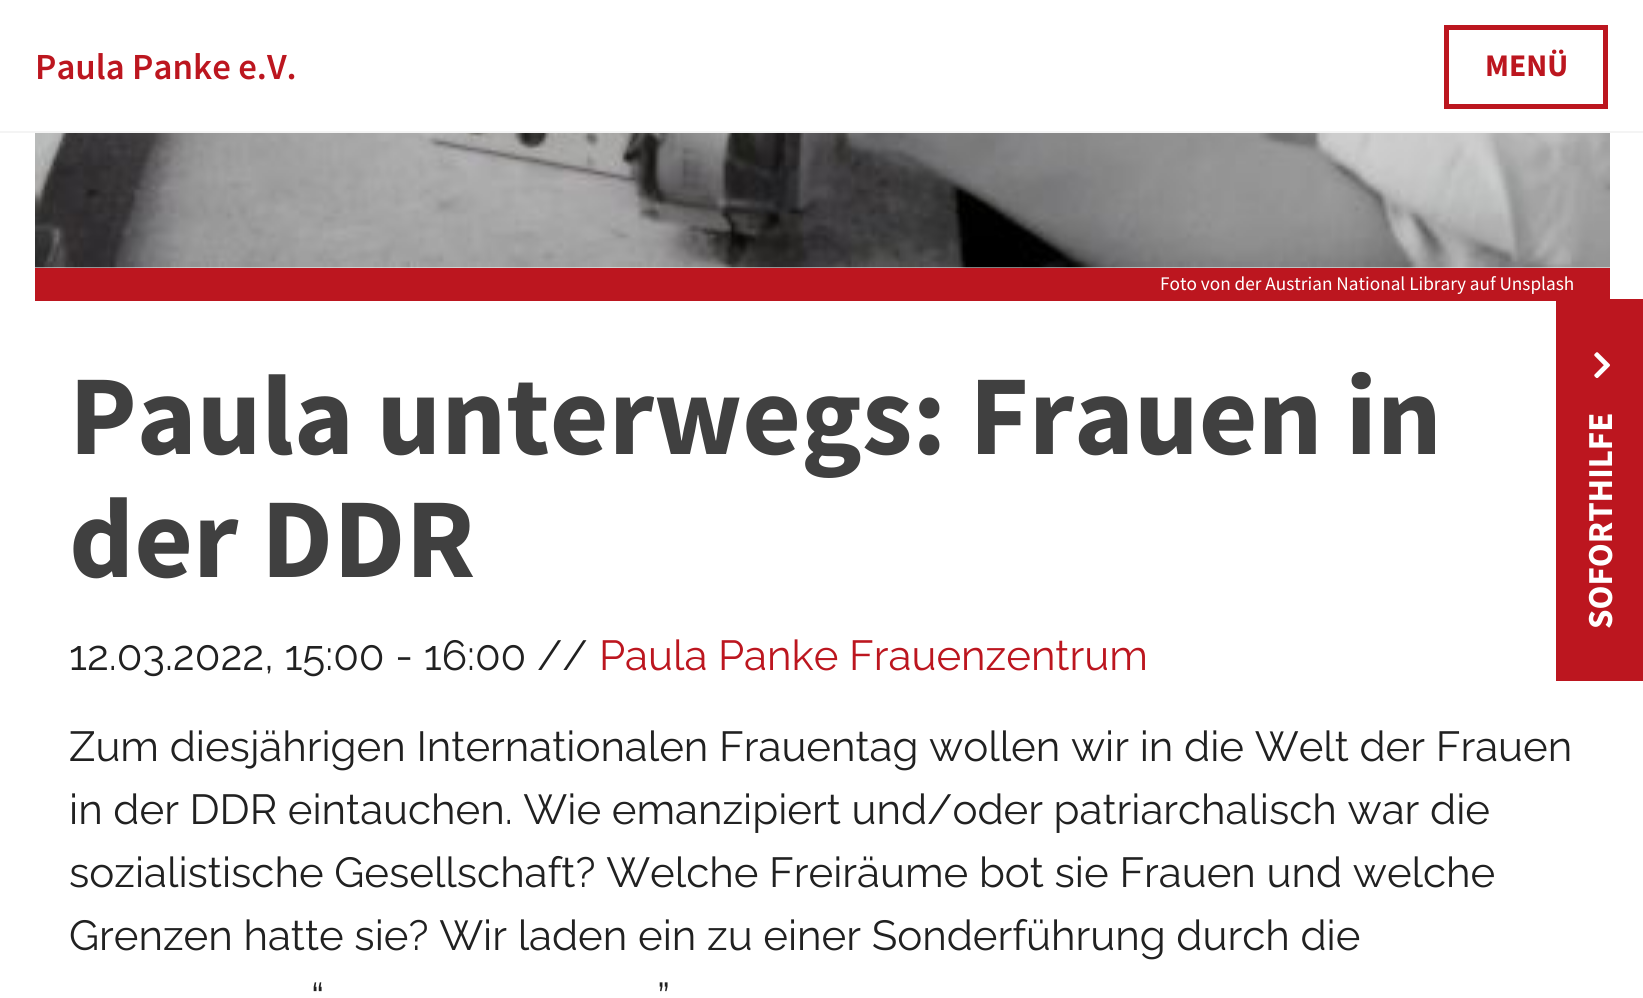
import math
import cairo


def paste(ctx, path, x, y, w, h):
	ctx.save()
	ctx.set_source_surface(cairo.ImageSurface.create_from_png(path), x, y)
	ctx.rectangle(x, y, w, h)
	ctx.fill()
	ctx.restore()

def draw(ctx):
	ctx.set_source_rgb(1, 1, 1)
	ctx.paint()
	ctx.set_source_rgb(0.957, 0.957, 0.957)
	ctx.rectangle(0, 131, 1643, 2)
	ctx.fill()
	ctx.select_font_face('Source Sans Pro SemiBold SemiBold')
	ctx.set_font_size(36.75)
	ctx.set_source_rgb(0.737, 0.086, 0.122)
	ctx.move_to(35, 79)
	ctx.show_text('Paula Panke e.V.')
	ctx.rectangle(1446.5, 27.5, 159, 79)
	ctx.set_line_width(5)
	ctx.stroke()
	ctx.select_font_face('Source Sans Pro', cairo.FONT_SLANT_NORMAL, cairo.FONT_WEIGHT_BOLD)
	ctx.set_font_size(31.5)
	ctx.move_to(1485, 76)
	ctx.show_text('MENÜ')
	paste(ctx, 'media/1.png', 35, 133, 1575, 135)
	ctx.rectangle(35, 268, 1575, 33)
	ctx.fill()
	ctx.select_font_face('Source Sans Pro')
	ctx.set_font_size(19.25)
	ctx.set_source_rgb(1, 1, 1)
	ctx.move_to(1160, 290)
	ctx.show_text('Foto von der Austrian National Library auf Unsplash')
	ctx.select_font_face('Source Sans Pro', cairo.FONT_SLANT_NORMAL, cairo.FONT_WEIGHT_BOLD)
	ctx.set_font_size(113.75)
	ctx.set_source_rgb(0.251, 0.251, 0.251)
	ctx.move_to(69, 454)
	ctx.show_text('Paula unterwegs: Frauen in')
	ctx.move_to(69, 577)
	ctx.show_text('der DDR')
	ctx.select_font_face('Raleway')
	ctx.set_font_size(42)
	ctx.set_source_rgb(0.129, 0.129, 0.129)
	ctx.move_to(69, 670)
	ctx.show_text('12.03.2022, 15:00 - 16:00 //')
	ctx.set_source_rgb(0.737, 0.086, 0.122)
	ctx.move_to(599, 670)
	ctx.show_text('Paula Panke Frauenzentrum')
	ctx.set_source_rgb(0.129, 0.129, 0.129)
	for x, y, s in [
		(69, 761, 'Zum diesjährigen Internationalen Frauentag wollen wir in die Welt der Frauen'),
		(69, 824, 'in der DDR eintauchen. Wie emanzipiert und/oder patriarchalisch war die'),
		(69, 887, 'sozialistische Gesellschaft? Welche Freiräume bot sie Frauen und welche'),
		(69, 950, 'Grenzen hatte sie? Wir laden ein zu einer Sonderführung durch die'),
		(311, 1013, '“'),
		(657, 1013, '”'),
	]:
		ctx.move_to(x, y)
		ctx.show_text(s)
	ctx.set_source_rgb(0.737, 0.086, 0.122)
	ctx.rectangle(1556, 299, 87, 382)
	ctx.fill()
	paste(ctx, 'media/2.png', 1594, 352, 16, 26)
	ctx.select_font_face('Source Sans Pro', cairo.FONT_SLANT_NORMAL, cairo.FONT_WEIGHT_BOLD)
	ctx.set_font_size(35)
	ctx.set_source_rgb(1, 1, 1)
	ctx.save()
	ctx.translate(1612, 629)
	ctx.rotate(-90 * math.pi / 180)
	ctx.move_to(0, 0)
	ctx.show_text('SOFORTHILFE')
	ctx.restore()


surface = cairo.ImageSurface(cairo.FORMAT_RGB24, 1643, 998)
ctx = cairo.Context(surface)
options = cairo.FontOptions()
options.set_hint_metrics(cairo.HINT_METRICS_OFF)
options.set_hint_style(cairo.HINT_STYLE_NONE)
ctx.set_font_options(options)
ctx.set_miter_limit(4)
draw(ctx)
surface.write_to_png('image.png')
